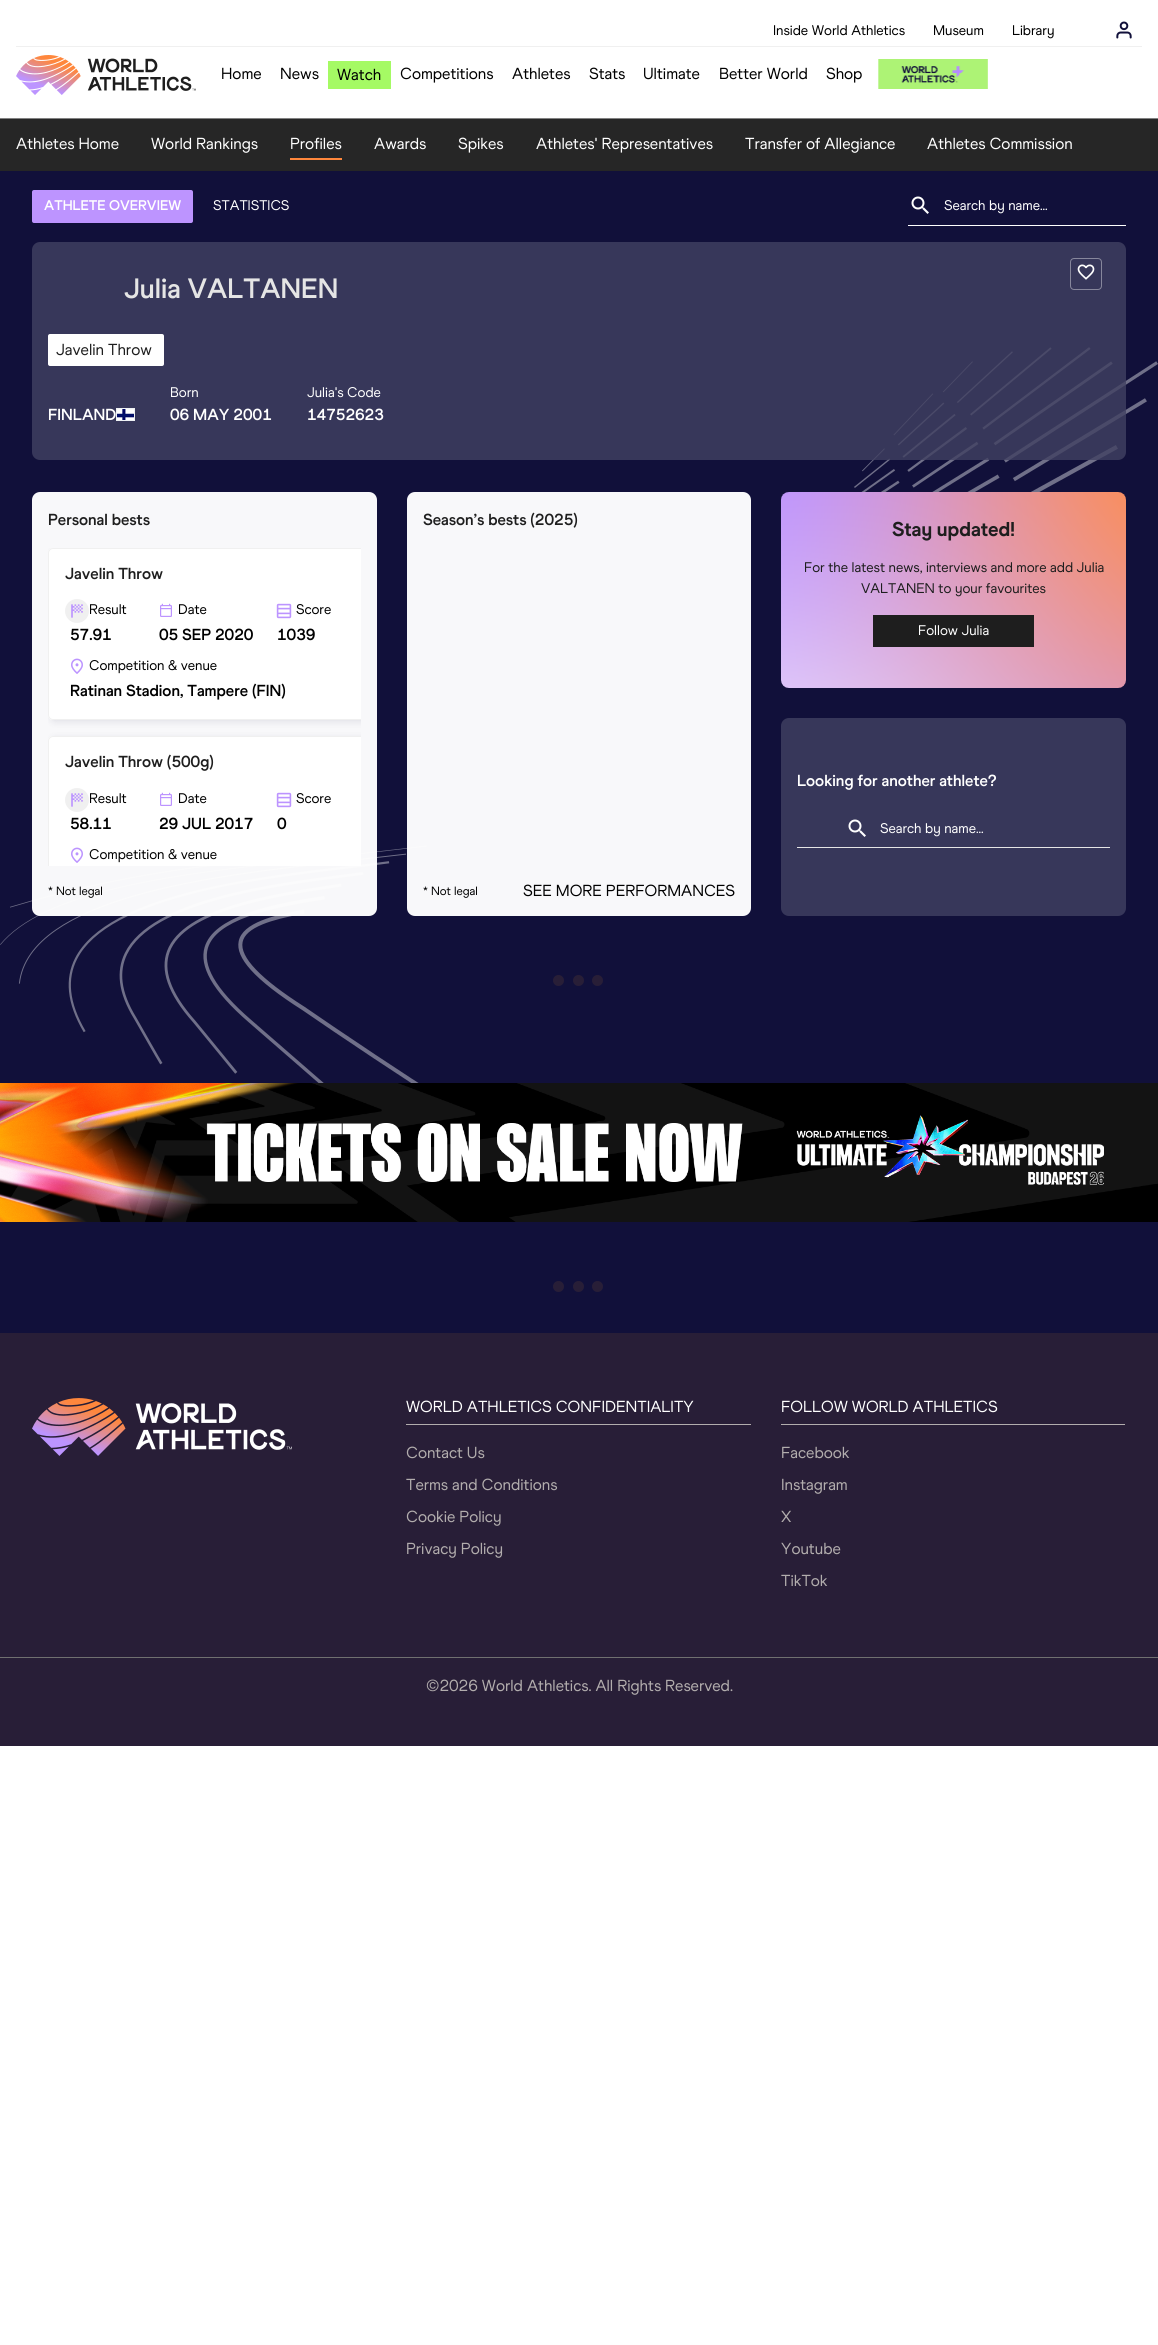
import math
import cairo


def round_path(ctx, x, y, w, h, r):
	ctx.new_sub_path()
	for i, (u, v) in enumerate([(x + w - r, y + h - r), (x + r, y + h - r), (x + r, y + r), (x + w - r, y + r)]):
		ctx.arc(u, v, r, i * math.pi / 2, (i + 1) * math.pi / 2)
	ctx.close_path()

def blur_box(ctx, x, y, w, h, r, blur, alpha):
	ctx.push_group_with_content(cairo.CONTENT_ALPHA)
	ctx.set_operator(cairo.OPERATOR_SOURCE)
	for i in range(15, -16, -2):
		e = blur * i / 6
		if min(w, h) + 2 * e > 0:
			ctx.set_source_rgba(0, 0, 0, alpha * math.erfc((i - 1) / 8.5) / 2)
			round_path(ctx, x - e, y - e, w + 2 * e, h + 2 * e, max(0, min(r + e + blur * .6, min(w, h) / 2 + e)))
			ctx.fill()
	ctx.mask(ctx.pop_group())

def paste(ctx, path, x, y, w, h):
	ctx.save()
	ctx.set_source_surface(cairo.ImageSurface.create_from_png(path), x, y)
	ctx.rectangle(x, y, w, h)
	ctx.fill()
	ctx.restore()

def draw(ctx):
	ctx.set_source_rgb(1, 1, 1)
	ctx.paint()
	ctx.set_source_rgb(0.941, 0.941, 0.941)
	ctx.rectangle(16, 46, 1126, 1)
	ctx.fill()
	ctx.select_font_face('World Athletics')
	ctx.set_font_size(14)
	ctx.set_source_rgb(0, 0, 0)
	for x, y, s in [
		(773, 35, 'Inside World Athletics'),
		(933, 35, 'Museum'),
		(1012, 35, 'Library'),
	]:
		ctx.move_to(x, y)
		ctx.show_text(s)
	paste(ctx, 'media/1.png', 1116, 21, 16, 18)
	paste(ctx, 'media/2.png', 16, 55, 180, 40)
	ctx.set_font_size(16)
	ctx.move_to(221, 79)
	ctx.show_text('Home')
	ctx.move_to(280, 79)
	ctx.show_text('News')
	ctx.set_source_rgb(0.647, 0.98, 0.392)
	ctx.rectangle(328, 61, 63, 28)
	ctx.fill()
	ctx.set_source_rgb(0, 0, 0)
	for x, y, s in [
		(337, 80, 'Watch'),
		(400, 79, 'Competitions'),
		(512, 79, 'Athletes'),
		(589, 79, 'Stats'),
		(643, 79, 'Ultimate'),
		(719, 79, 'Better World'),
		(826, 79, 'Shop'),
	]:
		ctx.move_to(x, y)
		ctx.show_text(s)
	paste(ctx, 'media/3.png', 878, 59, 110, 30)
	ctx.set_source_rgb(0.149, 0.149, 0.149)
	ctx.rectangle(0, 119, 1158, 52)
	ctx.fill()
	ctx.set_source_rgb(0.506, 0.506, 0.506)
	ctx.rectangle(0, 118, 1158, 1)
	ctx.fill()
	ctx.set_source_rgb(1, 1, 1)
	ctx.move_to(16, 149)
	ctx.show_text('Athletes Home')
	ctx.move_to(151, 149)
	ctx.show_text('World Rankings')
	ctx.set_source_rgb(1, 0.529, 0.235)
	ctx.rectangle(290, 158, 52, 2)
	ctx.fill()
	ctx.set_source_rgb(1, 1, 1)
	for x, y, s in [
		(290, 149, 'Profiles'),
		(374, 149, 'Awards'),
		(458, 149, 'Spikes'),
		(536, 149, 'Athletes\' Representatives'),
		(745, 149, 'Transfer of Allegiance'),
		(927, 149, 'Athletes Commission'),
	]:
		ctx.move_to(x, y)
		ctx.show_text(s)
	paste(ctx, 'media/4.png', 0, 171, 1158, 1162)
	ctx.set_source_rgb(0.741, 0.58, 1)
	round_path(ctx, 32, 190, 161, 33, 2)
	ctx.fill()
	ctx.select_font_face('World Athletics', cairo.FONT_SLANT_NORMAL, cairo.FONT_WEIGHT_BOLD)
	ctx.set_font_size(14)
	ctx.set_source_rgb(1, 1, 1)
	ctx.move_to(44, 210)
	ctx.show_text('ATHLETE OVERVIEW')
	ctx.select_font_face('World Athletics')
	ctx.move_to(213, 210)
	ctx.show_text('STATISTICS')
	paste(ctx, 'media/5.png', 911, 196, 18, 18)
	ctx.move_to(944, 210)
	ctx.show_text('Search by name...')
	ctx.rectangle(908, 225, 218, 1)
	ctx.fill()
	ctx.set_source_rgba(0.255, 0.255, 0.384, 0.8)
	round_path(ctx, 32, 242, 1094, 218, 8)
	ctx.fill()
	ctx.select_font_face('World Athletics', cairo.FONT_SLANT_NORMAL, cairo.FONT_WEIGHT_BOLD)
	ctx.set_font_size(28)
	ctx.set_source_rgb(0.898, 0.898, 0.898)
	ctx.move_to(124, 298)
	ctx.show_text('Julia VALTANEN')
	round_path(ctx, 1070.5, 258.5, 31, 31, 3.5)
	ctx.set_source_rgb(0.529, 0.529, 0.612)
	ctx.set_line_width(1)
	ctx.stroke()
	paste(ctx, 'media/6.png', 1077, 264, 18, 16)
	ctx.set_source_rgb(1, 1, 1)
	round_path(ctx, 48, 334, 116, 32, 2)
	ctx.fill()
	ctx.select_font_face('World Athletics')
	ctx.set_font_size(16)
	ctx.set_source_rgb(0.118, 0.118, 0.118)
	ctx.move_to(56, 355)
	ctx.show_text('Javelin Throw')
	ctx.select_font_face('World Athletics', cairo.FONT_SLANT_NORMAL, cairo.FONT_WEIGHT_BOLD)
	ctx.set_source_rgb(1, 1, 1)
	ctx.move_to(48, 420)
	ctx.show_text('FINLAND')
	paste(ctx, 'media/7.png', 117, 409, 17, 11)
	ctx.rectangle(116.5, 408.5, 18, 12)
	ctx.set_source_rgb(0.933, 0.945, 0.957)
	ctx.stroke()
	ctx.select_font_face('World Athletics')
	ctx.set_font_size(14)
	ctx.set_source_rgb(1, 1, 1)
	ctx.move_to(170, 397)
	ctx.show_text('Born')
	ctx.select_font_face('World Athletics', cairo.FONT_SLANT_NORMAL, cairo.FONT_WEIGHT_BOLD)
	ctx.set_font_size(16)
	ctx.move_to(170, 420)
	ctx.show_text('06 MAY 2001')
	ctx.select_font_face('World Athletics')
	ctx.set_font_size(14)
	ctx.move_to(307, 397)
	ctx.show_text('Julia\'s Code')
	ctx.select_font_face('World Athletics', cairo.FONT_SLANT_NORMAL, cairo.FONT_WEIGHT_BOLD)
	ctx.set_font_size(16)
	ctx.move_to(307, 420)
	ctx.show_text('14752623')
	ctx.set_source_rgba(1, 1, 1, 0.97)
	round_path(ctx, 32, 492, 345, 424, 8)
	ctx.fill()
	ctx.set_source_rgb(0.118, 0.118, 0.118)
	ctx.move_to(48, 525)
	ctx.show_text('Personal bests')
	ctx.save()
	ctx.rectangle(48, 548, 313, 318)
	ctx.clip()
	ctx.set_source_rgb(0.067, 0.063, 0.227)
	blur_box(ctx, 50, 550, 329, 172, 5, 3.5, 0.1)
	ctx.restore()
	ctx.set_source_rgb(1, 1, 1)
	ctx.new_path()
	ctx.move_to(53, 548)
	ctx.line_to(361, 548)
	ctx.line_to(361, 720)
	ctx.line_to(53, 720)
	ctx.curve_to(50, 720, 48, 718, 48, 715)
	ctx.line_to(48, 553)
	ctx.curve_to(48, 550, 50, 548, 53, 548)
	ctx.close_path()
	ctx.fill()
	ctx.save()
	ctx.rectangle(48, 548, 313, 318)
	ctx.clip()
	round_path(ctx, 48.5, 548.5, 328, 171, 4.5)
	ctx.set_source_rgb(0.941, 0.941, 0.941)
	ctx.stroke()
	ctx.restore()
	ctx.set_source_rgb(0.118, 0.118, 0.118)
	ctx.move_to(65, 579)
	ctx.show_text('Javelin Throw')
	paste(ctx, 'media/8.png', 65, 599, 24, 24)
	ctx.select_font_face('World Athletics')
	ctx.set_font_size(14)
	ctx.set_source_rgb(0, 0, 0)
	ctx.move_to(89, 614)
	ctx.show_text('Result')
	ctx.select_font_face('World Athletics', cairo.FONT_SLANT_NORMAL, cairo.FONT_WEIGHT_BOLD)
	ctx.set_font_size(16)
	ctx.move_to(70, 640)
	ctx.show_text('57.91')
	paste(ctx, 'media/9.png', 160, 603, 12, 14)
	ctx.select_font_face('World Athletics')
	ctx.set_font_size(14)
	ctx.move_to(178, 614)
	ctx.show_text('Date')
	ctx.select_font_face('World Athletics', cairo.FONT_SLANT_NORMAL, cairo.FONT_WEIGHT_BOLD)
	ctx.set_font_size(16)
	ctx.move_to(159, 640)
	ctx.show_text('05 SEP 2020')
	paste(ctx, 'media/10.png', 276, 603, 16, 16)
	ctx.select_font_face('World Athletics')
	ctx.set_font_size(14)
	ctx.move_to(296, 614)
	ctx.show_text('Score')
	ctx.select_font_face('World Athletics', cairo.FONT_SLANT_NORMAL, cairo.FONT_WEIGHT_BOLD)
	ctx.set_font_size(16)
	ctx.move_to(277, 640)
	ctx.show_text('1039')
	paste(ctx, 'media/11.png', 71, 658, 12, 16)
	ctx.select_font_face('World Athletics')
	ctx.set_font_size(14)
	ctx.move_to(89, 670)
	ctx.show_text('Competition & venue')
	ctx.select_font_face('World Athletics', cairo.FONT_SLANT_NORMAL, cairo.FONT_WEIGHT_BOLD)
	ctx.set_font_size(16)
	ctx.move_to(70, 696)
	ctx.show_text('Ratinan Stadion, Tampere (FIN)')
	ctx.save()
	ctx.rectangle(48, 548, 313, 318)
	ctx.clip()
	ctx.set_source_rgb(0.067, 0.063, 0.227)
	blur_box(ctx, 50, 738, 329, 173, 5, 3.5, 0.1)
	ctx.restore()
	ctx.set_source_rgb(1, 1, 1)
	ctx.new_path()
	ctx.move_to(53, 736)
	ctx.line_to(361, 736)
	ctx.line_to(361, 866)
	ctx.line_to(48, 866)
	ctx.line_to(48, 741)
	ctx.curve_to(48, 738, 50, 736, 53, 736)
	ctx.close_path()
	ctx.fill()
	ctx.select_font_face('World Athletics')
	ctx.set_font_size(12)
	ctx.set_source_rgb(0, 0, 0)
	ctx.move_to(48, 895)
	ctx.show_text('* Not legal')
	ctx.save()
	ctx.rectangle(48, 548, 313, 318)
	ctx.clip()
	round_path(ctx, 48.5, 736.5, 328, 172, 4.5)
	ctx.set_source_rgb(0.941, 0.941, 0.941)
	ctx.stroke()
	ctx.restore()
	ctx.select_font_face('World Athletics', cairo.FONT_SLANT_NORMAL, cairo.FONT_WEIGHT_BOLD)
	ctx.set_font_size(16)
	ctx.set_source_rgb(0.118, 0.118, 0.118)
	ctx.move_to(65, 767)
	ctx.show_text('Javelin Throw (500g)')
	paste(ctx, 'media/8.png', 65, 788, 24, 24)
	ctx.select_font_face('World Athletics')
	ctx.set_font_size(14)
	ctx.set_source_rgb(0, 0, 0)
	ctx.move_to(89, 803)
	ctx.show_text('Result')
	ctx.select_font_face('World Athletics', cairo.FONT_SLANT_NORMAL, cairo.FONT_WEIGHT_BOLD)
	ctx.set_font_size(16)
	ctx.move_to(70, 829)
	ctx.show_text('58.11')
	paste(ctx, 'media/9.png', 160, 792, 12, 14)
	ctx.select_font_face('World Athletics')
	ctx.set_font_size(14)
	ctx.move_to(178, 803)
	ctx.show_text('Date')
	ctx.select_font_face('World Athletics', cairo.FONT_SLANT_NORMAL, cairo.FONT_WEIGHT_BOLD)
	ctx.set_font_size(16)
	ctx.move_to(159, 829)
	ctx.show_text('29 JUL 2017')
	paste(ctx, 'media/10.png', 276, 792, 16, 16)
	ctx.select_font_face('World Athletics')
	ctx.set_font_size(14)
	ctx.move_to(296, 803)
	ctx.show_text('Score')
	ctx.select_font_face('World Athletics', cairo.FONT_SLANT_NORMAL, cairo.FONT_WEIGHT_BOLD)
	ctx.set_font_size(16)
	ctx.move_to(277, 829)
	ctx.show_text('0')
	paste(ctx, 'media/11.png', 71, 847, 12, 16)
	ctx.select_font_face('World Athletics')
	ctx.set_font_size(14)
	ctx.move_to(89, 859)
	ctx.show_text('Competition & venue')
	ctx.set_source_rgba(1, 1, 1, 0.97)
	round_path(ctx, 407, 492, 344, 424, 8)
	ctx.fill()
	ctx.select_font_face('World Athletics', cairo.FONT_SLANT_NORMAL, cairo.FONT_WEIGHT_BOLD)
	ctx.set_font_size(16)
	ctx.set_source_rgb(0.118, 0.118, 0.118)
	ctx.move_to(423, 525)
	ctx.show_text('Season’s bests (2025)')
	ctx.select_font_face('World Athletics')
	ctx.set_font_size(12)
	ctx.set_source_rgb(0, 0, 0)
	ctx.move_to(423, 895)
	ctx.show_text('* Not legal')
	ctx.set_font_size(16)
	ctx.move_to(523, 896)
	ctx.show_text('SEE MORE PERFORMANCES')
	paste(ctx, 'media/12.png', 781, 492, 345, 196)
	ctx.select_font_face('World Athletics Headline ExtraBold')
	ctx.set_font_size(20)
	ctx.set_source_rgb(0.118, 0.118, 0.118)
	ctx.move_to(892, 536)
	ctx.show_text('Stay updated!')
	ctx.select_font_face('World Athletics')
	ctx.set_font_size(14)
	ctx.move_to(804, 572)
	ctx.show_text('For the latest news, interviews and more add Julia')
	ctx.move_to(861, 593)
	ctx.show_text('VALTANEN to your favourites')
	ctx.rectangle(873, 615, 161, 32)
	ctx.fill()
	ctx.set_source_rgb(1, 1, 1)
	ctx.move_to(918, 635)
	ctx.show_text('Follow Julia')
	ctx.set_source_rgb(0.216, 0.216, 0.353)
	round_path(ctx, 781, 718, 345, 198, 8)
	ctx.fill()
	ctx.select_font_face('World Athletics', cairo.FONT_SLANT_NORMAL, cairo.FONT_WEIGHT_BOLD)
	ctx.set_font_size(16)
	ctx.set_source_rgb(1, 1, 1)
	ctx.move_to(797, 786)
	ctx.show_text('Looking for another athlete?')
	paste(ctx, 'media/13.png', 848, 819, 18, 18)
	ctx.select_font_face('World Athletics')
	ctx.set_font_size(14)
	ctx.move_to(880, 833)
	ctx.show_text('Search by name...')
	ctx.set_source_rgb(0.898, 0.898, 0.898)
	ctx.rectangle(797, 847, 313, 1)
	ctx.fill()
	ctx.set_source_rgb(0.157, 0.118, 0.216)
	ctx.arc(558.5, 980.5, 5.5, 0, 2 * math.pi)
	ctx.fill()
	ctx.arc(578.5, 980.5, 5.5, 0, 2 * math.pi)
	ctx.fill()
	ctx.arc(597.5, 980.5, 5.5, 0, 2 * math.pi)
	ctx.fill()
	paste(ctx, 'media/14.png', 0, 1083, 1158, 139)
	ctx.arc(558.5, 1286.5, 5.5, 0, 2 * math.pi)
	ctx.fill()
	ctx.arc(578.5, 1286.5, 5.5, 0, 2 * math.pi)
	ctx.fill()
	ctx.arc(597.5, 1286.5, 5.5, 0, 2 * math.pi)
	ctx.fill()
	ctx.rectangle(0, 1333, 1158, 413)
	ctx.fill()
	paste(ctx, 'media/15.png', 32, 1398, 260, 58)
	ctx.set_source_rgb(0.698, 0.678, 0.678)
	ctx.rectangle(406, 1424, 345, 1)
	ctx.fill()
	ctx.set_font_size(16)
	ctx.set_source_rgb(1, 1, 1)
	ctx.move_to(406, 1412)
	ctx.show_text('WORLD ATHLETICS CONFIDENTIALITY')
	ctx.set_source_rgb(0.698, 0.678, 0.678)
	for x, y, s in [
		(406, 1458, 'Contact Us'),
		(406, 1490, 'Terms and Conditions'),
		(406, 1522, 'Cookie Policy'),
		(406, 1554, 'Privacy Policy'),
	]:
		ctx.move_to(x, y)
		ctx.show_text(s)
	ctx.rectangle(781, 1424, 344, 1)
	ctx.fill()
	ctx.set_source_rgb(1, 1, 1)
	ctx.move_to(781, 1412)
	ctx.show_text('FOLLOW WORLD ATHLETICS')
	ctx.set_source_rgb(0.698, 0.678, 0.678)
	for x, y, s in [
		(781, 1458, 'Facebook'),
		(781, 1490, 'Instagram'),
		(781, 1522, 'X'),
		(781, 1554, 'Youtube'),
		(781, 1586, 'TikTok'),
	]:
		ctx.move_to(x, y)
		ctx.show_text(s)
	ctx.set_source_rgb(0.439, 0.439, 0.439)
	ctx.rectangle(0, 1657, 1158, 1)
	ctx.fill()
	ctx.set_source_rgb(0.698, 0.678, 0.678)
	ctx.move_to(426, 1691)
	ctx.show_text('©2026 World Athletics. All Rights Reserved.')


surface = cairo.ImageSurface(cairo.FORMAT_RGB24, 1158, 2345)
ctx = cairo.Context(surface)
options = cairo.FontOptions()
options.set_hint_metrics(cairo.HINT_METRICS_OFF)
options.set_hint_style(cairo.HINT_STYLE_NONE)
ctx.set_font_options(options)
ctx.set_miter_limit(4)
draw(ctx)
surface.write_to_png('image.png')
